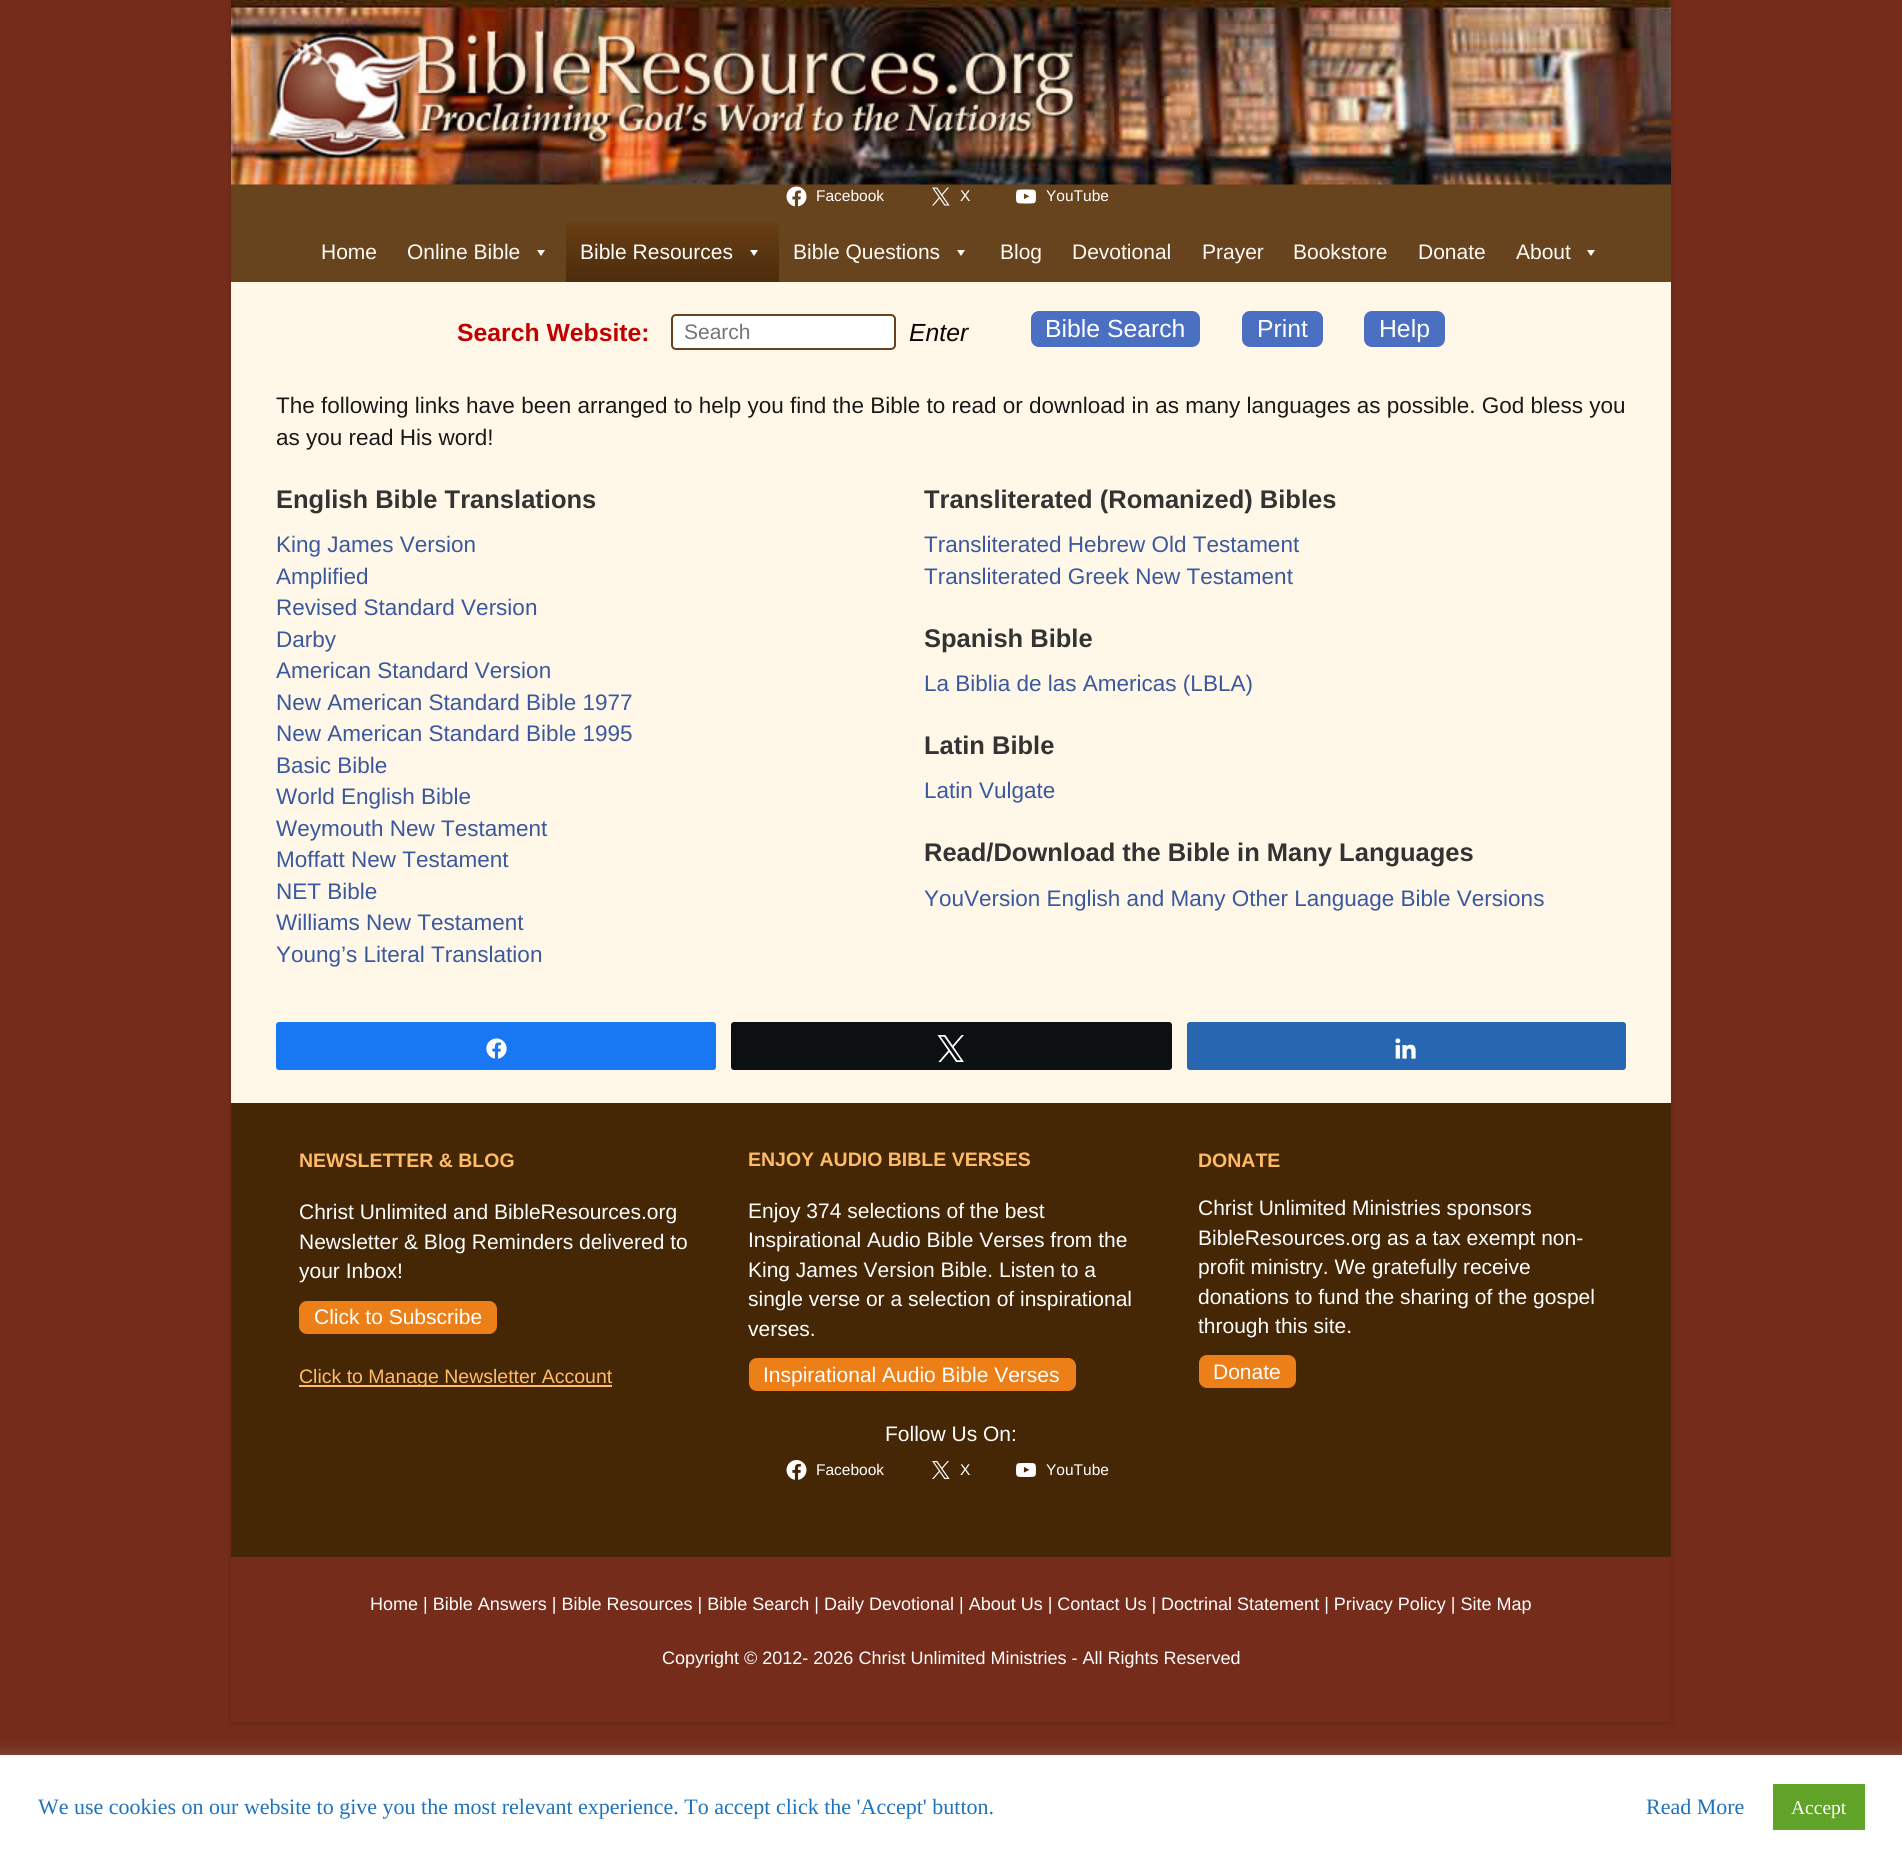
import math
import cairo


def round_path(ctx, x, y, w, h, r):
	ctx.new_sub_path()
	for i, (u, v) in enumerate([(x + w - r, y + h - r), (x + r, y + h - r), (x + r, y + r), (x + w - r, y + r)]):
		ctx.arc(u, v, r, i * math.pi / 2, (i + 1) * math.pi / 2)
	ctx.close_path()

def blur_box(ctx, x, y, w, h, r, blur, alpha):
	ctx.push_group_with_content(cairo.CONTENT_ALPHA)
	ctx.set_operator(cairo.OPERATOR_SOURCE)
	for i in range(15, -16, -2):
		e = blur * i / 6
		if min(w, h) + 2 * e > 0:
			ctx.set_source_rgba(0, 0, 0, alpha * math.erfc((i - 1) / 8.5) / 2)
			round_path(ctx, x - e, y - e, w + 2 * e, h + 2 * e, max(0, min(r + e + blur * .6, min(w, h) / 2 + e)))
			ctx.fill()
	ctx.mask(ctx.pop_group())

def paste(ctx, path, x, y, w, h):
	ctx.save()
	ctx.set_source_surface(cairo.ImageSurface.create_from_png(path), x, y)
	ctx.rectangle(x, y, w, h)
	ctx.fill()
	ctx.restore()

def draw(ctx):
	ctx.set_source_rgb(0.459, 0.173, 0.106)
	ctx.paint()
	ctx.set_source_rgb(0, 0, 0)
	blur_box(ctx, 231, 2, 1440, 1722, 0, 3, 0.15)
	ctx.set_source_rgb(1, 0.965, 0.91)
	ctx.rectangle(231, 282, 1440, 821)
	ctx.fill()
	ctx.set_source_rgb(0.404, 0.263, 0.118)
	ctx.rectangle(231, 184, 1440, 39)
	ctx.fill()
	paste(ctx, 'media/1.png', 231, 0, 1440, 185)
	paste(ctx, 'media/2.png', 786, 186, 21, 21)
	ctx.select_font_face('Liberation Sans')
	ctx.set_font_size(15.5)
	ctx.set_source_rgb(1, 1, 1)
	ctx.move_to(816, 201)
	ctx.show_text('Facebook')
	paste(ctx, 'media/3.png', 932, 187, 18, 19)
	ctx.move_to(960, 201)
	ctx.show_text('X')
	paste(ctx, 'media/4.png', 1016, 189, 20, 15)
	ctx.move_to(1046, 201)
	ctx.show_text('YouTube')
	ctx.set_source_rgb(0.404, 0.263, 0.118)
	ctx.rectangle(231, 223, 1440, 59)
	ctx.fill()
	ctx.set_font_size(21)
	ctx.set_source_rgb(1, 0.984, 0.961)
	ctx.move_to(321, 259)
	ctx.show_text('Home')
	ctx.move_to(407, 259)
	ctx.show_text('Online Bible')
	ctx.new_path()
	ctx.move_to(545, 250)
	ctx.line_to(541, 256)
	ctx.line_to(537, 250)
	ctx.close_path()
	ctx.fill()
	gradient = cairo.LinearGradient(672, 222, 672, 282)
	gradient.add_color_stop_rgba(0, 0.412, 0.243, 0.075, 1)
	gradient.add_color_stop_rgba(1, 0.298, 0.176, 0.055, 1)
	ctx.set_source(gradient)
	ctx.rectangle(566, 223, 213, 59)
	ctx.fill()
	ctx.set_source_rgb(1, 1, 1)
	ctx.move_to(580, 259)
	ctx.show_text('Bible Resources')
	ctx.new_path()
	ctx.move_to(758, 250)
	ctx.line_to(754, 256)
	ctx.line_to(750, 250)
	ctx.close_path()
	ctx.fill()
	ctx.set_source_rgb(1, 0.984, 0.961)
	ctx.move_to(793, 259)
	ctx.show_text('Bible Questions')
	ctx.new_path()
	ctx.move_to(965, 250)
	ctx.line_to(961, 256)
	ctx.line_to(957, 250)
	ctx.close_path()
	ctx.fill()
	for x, y, s in [
		(1000, 259, 'Blog'),
		(1072, 259, 'Devotional'),
		(1202, 259, 'Prayer'),
		(1293, 259, 'Bookstore'),
		(1418, 259, 'Donate'),
		(1516, 259, 'About'),
	]:
		ctx.move_to(x, y)
		ctx.show_text(s)
	ctx.new_path()
	ctx.move_to(1595, 250)
	ctx.line_to(1591, 256)
	ctx.line_to(1587, 250)
	ctx.close_path()
	ctx.fill()
	ctx.select_font_face('Liberation Sans', cairo.FONT_SLANT_NORMAL, cairo.FONT_WEIGHT_BOLD)
	ctx.set_font_size(24.75)
	ctx.set_source_rgb(0.753, 0, 0)
	ctx.move_to(457, 341)
	ctx.show_text('Search Website:')
	ctx.set_source_rgb(1, 1, 1)
	round_path(ctx, 672, 315, 223, 34, 4)
	ctx.fill_preserve()
	ctx.set_source_rgb(0.4, 0.259, 0.118)
	ctx.stroke()
	ctx.select_font_face('Liberation Sans')
	ctx.set_font_size(21)
	ctx.set_source_rgb(0.459, 0.459, 0.459)
	ctx.move_to(684, 339)
	ctx.show_text('Search')
	ctx.select_font_face('Liberation Sans', cairo.FONT_SLANT_ITALIC)
	ctx.set_font_size(24.75)
	ctx.set_source_rgb(0.067, 0, 0)
	ctx.move_to(909, 341)
	ctx.show_text('Enter')
	ctx.set_source_rgb(0.294, 0.439, 0.761)
	round_path(ctx, 1031, 311, 169, 36, 8)
	ctx.fill()
	ctx.select_font_face('Liberation Sans')
	ctx.set_source_rgb(1, 1, 1)
	ctx.move_to(1045, 337)
	ctx.show_text('Bible Search')
	ctx.set_source_rgb(0.294, 0.439, 0.761)
	round_path(ctx, 1242, 311, 81, 36, 8)
	ctx.fill()
	ctx.set_source_rgb(1, 1, 1)
	ctx.move_to(1257, 337)
	ctx.show_text('Print')
	ctx.set_source_rgb(0.294, 0.439, 0.761)
	round_path(ctx, 1364, 311, 81, 36, 8)
	ctx.fill()
	ctx.set_source_rgb(1, 1, 1)
	ctx.move_to(1379, 337)
	ctx.show_text('Help')
	ctx.set_font_size(22.5)
	ctx.set_source_rgb(0.102, 0.098, 0.09)
	ctx.move_to(276, 413)
	ctx.show_text('The following links have been arranged to help you find the Bible to read or download in as many languages as possible. God bless you')
	ctx.move_to(276, 445)
	ctx.show_text('as you read His word!')
	ctx.select_font_face('Liberation Sans', cairo.FONT_SLANT_NORMAL, cairo.FONT_WEIGHT_BOLD)
	ctx.set_font_size(25.5)
	ctx.set_source_rgb(0.2, 0.2, 0.2)
	ctx.move_to(276, 508)
	ctx.show_text('English Bible Translations')
	ctx.select_font_face('Liberation Sans')
	ctx.set_font_size(22.5)
	ctx.set_source_rgb(0.227, 0.345, 0.62)
	for x, y, s in [
		(276, 552, 'King James Version'),
		(276, 584, 'Amplified'),
		(276, 615, 'Revised Standard Version'),
		(276, 647, 'Darby'),
		(276, 678, 'American Standard Version'),
		(276, 710, 'New American Standard Bible 1977'),
		(276, 741, 'New American Standard Bible 1995'),
		(276, 773, 'Basic Bible'),
		(276, 804, 'World English Bible'),
		(276, 836, 'Weymouth New Testament'),
		(276, 867, 'Moffatt New Testament'),
		(276, 899, 'NET Bible'),
		(276, 930, 'Williams New Testament'),
		(276, 962, 'Young’s Literal Translation'),
	]:
		ctx.move_to(x, y)
		ctx.show_text(s)
	ctx.select_font_face('Liberation Sans', cairo.FONT_SLANT_NORMAL, cairo.FONT_WEIGHT_BOLD)
	ctx.set_font_size(25.5)
	ctx.set_source_rgb(0.2, 0.2, 0.2)
	ctx.move_to(924, 508)
	ctx.show_text('Transliterated (Romanized) Bibles')
	ctx.select_font_face('Liberation Sans')
	ctx.set_font_size(22.5)
	ctx.set_source_rgb(0.227, 0.345, 0.62)
	ctx.move_to(924, 552)
	ctx.show_text('Transliterated Hebrew Old Testament')
	ctx.move_to(924, 584)
	ctx.show_text('Transliterated Greek New Testament')
	ctx.select_font_face('Liberation Sans', cairo.FONT_SLANT_NORMAL, cairo.FONT_WEIGHT_BOLD)
	ctx.set_font_size(25.5)
	ctx.set_source_rgb(0.2, 0.2, 0.2)
	ctx.move_to(924, 647)
	ctx.show_text('Spanish Bible')
	ctx.select_font_face('Liberation Sans')
	ctx.set_font_size(22.5)
	ctx.set_source_rgb(0.227, 0.345, 0.62)
	ctx.move_to(924, 691)
	ctx.show_text('La Biblia de las Americas (LBLA)')
	ctx.select_font_face('Liberation Sans', cairo.FONT_SLANT_NORMAL, cairo.FONT_WEIGHT_BOLD)
	ctx.set_font_size(25.5)
	ctx.set_source_rgb(0.2, 0.2, 0.2)
	ctx.move_to(924, 754)
	ctx.show_text('Latin Bible')
	ctx.select_font_face('Liberation Sans')
	ctx.set_font_size(22.5)
	ctx.set_source_rgb(0.227, 0.345, 0.62)
	ctx.move_to(924, 798)
	ctx.show_text('Latin Vulgate')
	ctx.select_font_face('Liberation Sans', cairo.FONT_SLANT_NORMAL, cairo.FONT_WEIGHT_BOLD)
	ctx.set_font_size(25.5)
	ctx.set_source_rgb(0.2, 0.2, 0.2)
	ctx.move_to(924, 861)
	ctx.show_text('Read/Download the Bible in Many Languages')
	ctx.select_font_face('Liberation Sans')
	ctx.set_font_size(22.5)
	ctx.set_source_rgb(0.227, 0.345, 0.62)
	ctx.move_to(924, 906)
	ctx.show_text('YouVersion English and Many Other Language Bible Versions')
	ctx.set_source_rgb(0.094, 0.467, 0.949)
	round_path(ctx, 277, 1023, 438, 46, 2)
	ctx.fill_preserve()
	ctx.stroke()
	paste(ctx, 'media/5.png', 486, 1038, 21, 21)
	ctx.set_source_rgb(0.051, 0.063, 0.078)
	round_path(ctx, 732, 1023, 439, 46, 2)
	ctx.fill_preserve()
	ctx.stroke()
	paste(ctx, 'media/6.png', 937, 1035, 27, 27)
	ctx.set_source_rgb(0.153, 0.404, 0.694)
	round_path(ctx, 1188, 1023, 437, 46, 2)
	ctx.fill_preserve()
	ctx.stroke()
	paste(ctx, 'media/7.png', 1395, 1038, 21, 21)
	ctx.set_source_rgb(0.271, 0.153, 0.024)
	ctx.rectangle(231, 1103, 1440, 454)
	ctx.fill()
	ctx.select_font_face('Liberation Sans', cairo.FONT_SLANT_NORMAL, cairo.FONT_WEIGHT_BOLD)
	ctx.set_font_size(19.5)
	ctx.set_source_rgb(1, 0.733, 0.4)
	ctx.move_to(299, 1167)
	ctx.show_text('NEWSLETTER & BLOG')
	ctx.select_font_face('Liberation Sans')
	ctx.set_font_size(21)
	ctx.set_source_rgb(1, 1, 1)
	for x, y, s in [
		(299, 1219, 'Christ Unlimited and BibleResources.org'),
		(299, 1249, 'Newsletter & Blog Reminders delivered to'),
		(299, 1278, 'your Inbox!'),
	]:
		ctx.move_to(x, y)
		ctx.show_text(s)
	ctx.set_source_rgb(0.929, 0.498, 0.094)
	round_path(ctx, 299, 1301, 198, 33, 8)
	ctx.fill()
	ctx.set_source_rgb(1, 1, 1)
	ctx.move_to(314, 1324)
	ctx.show_text('Click to Subscribe')
	ctx.set_source_rgb(1, 0.733, 0.4)
	ctx.rectangle(299, 1385, 313, 2)
	ctx.fill()
	ctx.set_font_size(19.5)
	ctx.move_to(299, 1383)
	ctx.show_text('Click to Manage Newsletter Account')
	ctx.select_font_face('Liberation Sans', cairo.FONT_SLANT_NORMAL, cairo.FONT_WEIGHT_BOLD)
	ctx.move_to(748, 1166)
	ctx.show_text('ENJOY AUDIO BIBLE VERSES')
	ctx.select_font_face('Liberation Sans')
	ctx.set_font_size(21)
	ctx.set_source_rgb(1, 1, 1)
	for x, y, s in [
		(748, 1218, 'Enjoy 374 selections of the best'),
		(748, 1247, 'Inspirational Audio Bible Verses from the'),
		(748, 1277, 'King James Version Bible. Listen to a'),
		(748, 1306, 'single verse or a selection of inspirational'),
		(748, 1336, 'verses.'),
	]:
		ctx.move_to(x, y)
		ctx.show_text(s)
	ctx.set_source_rgb(0.929, 0.498, 0.094)
	round_path(ctx, 749, 1358, 327, 33, 8)
	ctx.fill()
	ctx.set_source_rgb(1, 1, 1)
	ctx.move_to(763, 1382)
	ctx.show_text('Inspirational Audio Bible Verses')
	ctx.move_to(885, 1441)
	ctx.show_text('Follow Us On:')
	paste(ctx, 'media/8.png', 786, 1460, 21, 20)
	ctx.set_font_size(15.5)
	ctx.move_to(816, 1475)
	ctx.show_text('Facebook')
	paste(ctx, 'media/9.png', 932, 1461, 18, 18)
	ctx.move_to(960, 1475)
	ctx.show_text('X')
	paste(ctx, 'media/10.png', 1016, 1463, 20, 14)
	ctx.move_to(1046, 1475)
	ctx.show_text('YouTube')
	ctx.select_font_face('Liberation Sans', cairo.FONT_SLANT_NORMAL, cairo.FONT_WEIGHT_BOLD)
	ctx.set_font_size(19.5)
	ctx.set_source_rgb(1, 0.733, 0.4)
	ctx.move_to(1198, 1167)
	ctx.show_text('DONATE')
	ctx.select_font_face('Liberation Sans')
	ctx.set_font_size(21)
	ctx.set_source_rgb(1, 1, 1)
	for x, y, s in [
		(1198, 1215, 'Christ Unlimited Ministries sponsors'),
		(1198, 1245, 'BibleResources.org as a tax exempt non-'),
		(1198, 1274, 'profit ministry. We gratefully receive'),
		(1198, 1304, 'donations to fund the sharing of the gospel'),
		(1198, 1333, 'through this site.'),
	]:
		ctx.move_to(x, y)
		ctx.show_text(s)
	ctx.set_source_rgb(0.929, 0.498, 0.094)
	round_path(ctx, 1199, 1355, 97, 33, 8)
	ctx.fill()
	ctx.set_source_rgb(1, 1, 1)
	ctx.move_to(1213, 1379)
	ctx.show_text('Donate')
	ctx.set_source_rgb(0.459, 0.173, 0.106)
	ctx.rectangle(231, 1557, 1440, 165)
	ctx.fill()
	ctx.set_font_size(18)
	ctx.set_source_rgb(1, 1, 1)
	ctx.move_to(370, 1610)
	ctx.show_text('Home | Bible Answers | Bible Resources | Bible Search | Daily Devotional | About Us | Contact Us | Doctrinal Statement | Privacy Policy | Site Map')
	ctx.move_to(662, 1664)
	ctx.show_text('Copyright © 2012- 2026 Christ Unlimited Ministries - All Rights Reserved')
	ctx.set_source_rgb(0.675, 0.671, 0.671)
	blur_box(ctx, 0, 1754, 1902, 103, 0, 7.5, 0.3)
	ctx.set_source_rgb(1, 1, 1)
	ctx.rectangle(0, 1755, 1902, 103)
	ctx.fill()
	ctx.select_font_face('Liberation Serif')
	ctx.set_font_size(22)
	ctx.set_source_rgb(0.118, 0.451, 0.745)
	ctx.move_to(38, 1814)
	ctx.show_text('We use cookies on our website to give you the most relevant experience. To accept click the \'Accept\' button.')
	ctx.move_to(1646, 1814)
	ctx.show_text('Read More')
	ctx.set_source_rgb(0.38, 0.635, 0.161)
	ctx.rectangle(1773, 1784, 92, 46)
	ctx.fill()
	ctx.set_font_size(19.5)
	ctx.set_source_rgb(1, 1, 1)
	ctx.move_to(1791, 1814)
	ctx.show_text('Accept')


surface = cairo.ImageSurface(cairo.FORMAT_RGB24, 1902, 1858)
ctx = cairo.Context(surface)
options = cairo.FontOptions()
options.set_hint_metrics(cairo.HINT_METRICS_OFF)
options.set_hint_style(cairo.HINT_STYLE_NONE)
ctx.set_font_options(options)
ctx.set_miter_limit(4)
draw(ctx)
surface.write_to_png('image.png')
